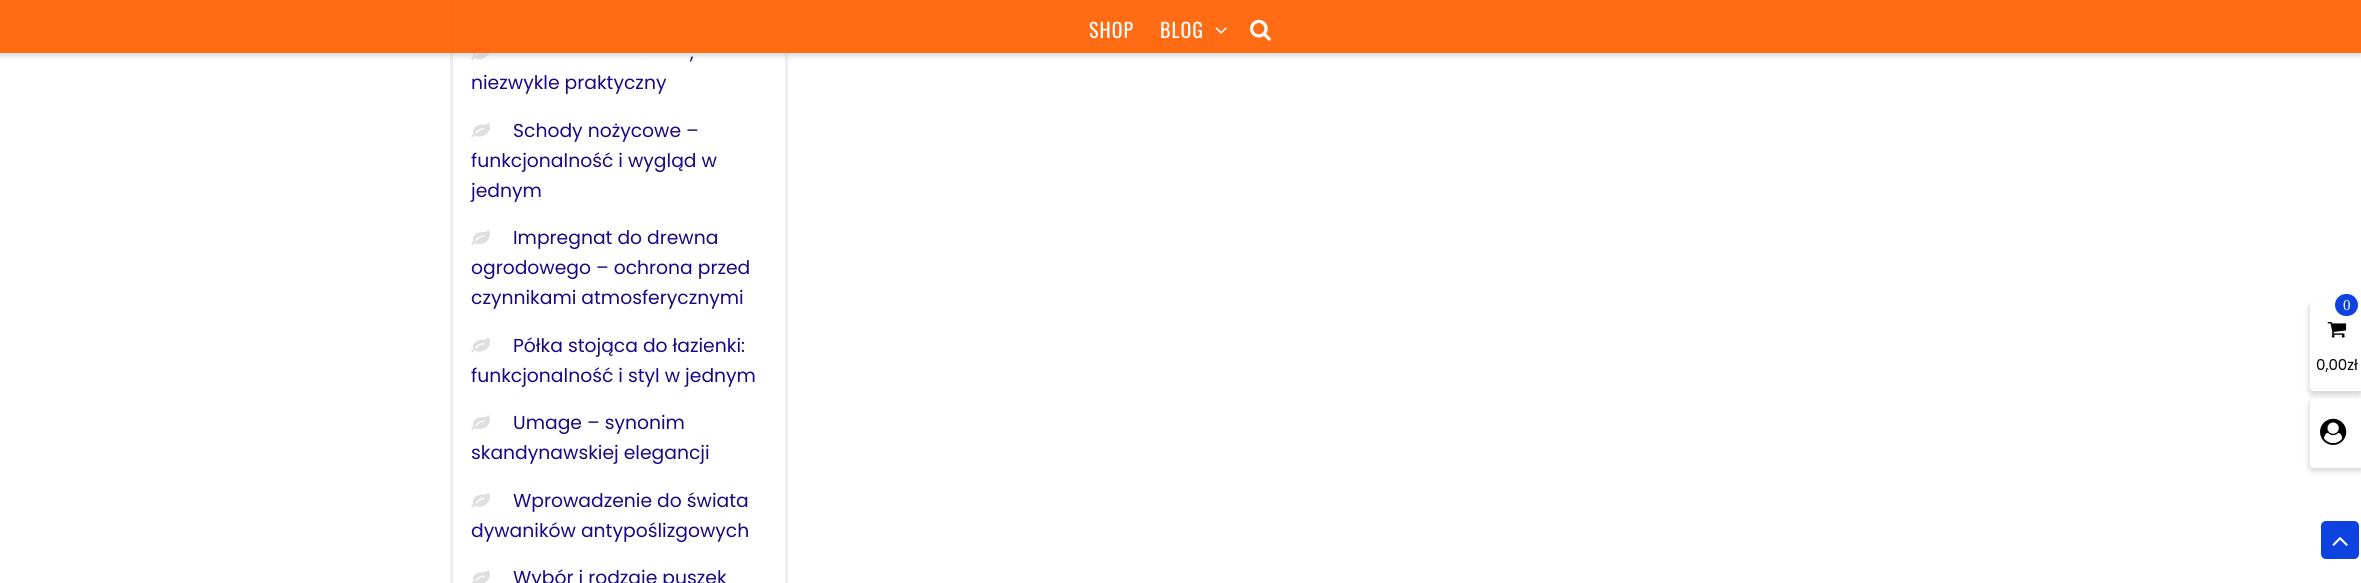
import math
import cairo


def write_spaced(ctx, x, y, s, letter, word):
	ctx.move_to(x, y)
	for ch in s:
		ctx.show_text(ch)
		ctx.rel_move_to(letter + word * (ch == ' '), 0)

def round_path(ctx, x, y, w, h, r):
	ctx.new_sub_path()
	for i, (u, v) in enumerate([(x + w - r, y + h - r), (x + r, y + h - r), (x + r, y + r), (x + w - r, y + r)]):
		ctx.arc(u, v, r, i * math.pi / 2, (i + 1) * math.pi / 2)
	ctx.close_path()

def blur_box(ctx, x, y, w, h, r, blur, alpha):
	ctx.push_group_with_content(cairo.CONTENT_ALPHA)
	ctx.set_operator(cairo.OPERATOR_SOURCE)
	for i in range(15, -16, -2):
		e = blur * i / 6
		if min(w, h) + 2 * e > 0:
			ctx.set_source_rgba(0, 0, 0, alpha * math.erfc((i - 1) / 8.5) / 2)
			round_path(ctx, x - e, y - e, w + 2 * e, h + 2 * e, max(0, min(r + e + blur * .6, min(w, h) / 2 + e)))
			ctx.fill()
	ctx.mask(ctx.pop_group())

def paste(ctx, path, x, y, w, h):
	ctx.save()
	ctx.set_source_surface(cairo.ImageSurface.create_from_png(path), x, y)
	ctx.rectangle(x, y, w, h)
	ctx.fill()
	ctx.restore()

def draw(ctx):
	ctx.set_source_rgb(1, 1, 1)
	ctx.paint()
	ctx.rectangle(451.5, -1.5, 335, 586)
	ctx.set_source_rgb(0.933, 0.933, 0.933)
	ctx.set_line_width(3)
	ctx.stroke()
	paste(ctx, 'media/3.png', 471, 45, 19, 15)
	ctx.save()
	ctx.set_fill_rule(cairo.FILL_RULE_EVEN_ODD)
	ctx.new_path()
	ctx.move_to(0, 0)
	ctx.line_to(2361, 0)
	ctx.line_to(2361, 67)
	ctx.line_to(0, 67)
	ctx.close_path()
	ctx.move_to(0, 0)
	ctx.line_to(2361, 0)
	ctx.line_to(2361, 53)
	ctx.line_to(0, 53)
	ctx.close_path()
	ctx.clip()
	ctx.set_source_rgb(0.769, 0.769, 0.769)
	blur_box(ctx, 0, 1, 2361, 53, 0, 4, 1)
	ctx.restore()
	ctx.set_source_rgba(1, 0.376, 0, 0.92)
	ctx.rectangle(0, 0, 2361, 53)
	ctx.fill()
	ctx.select_font_face('Oswald')
	ctx.set_font_size(20)
	ctx.set_source_rgb(1, 1, 1)
	write_spaced(ctx, 1089, 38, 'SHOP', 1, 0)
	write_spaced(ctx, 1160, 38, 'BLOG', 1, 0)
	paste(ctx, 'media/1.png', 1215, 27, 12, 7)
	paste(ctx, 'media/2.png', 1250, 19, 21, 22)
	ctx.select_font_face('Poppins')
	ctx.set_font_size(18.75)
	ctx.set_source_rgb(0.098, 0.039, 0.522)
	ctx.move_to(690, 59)
	ctx.show_text(',')
	ctx.move_to(471, 89)
	ctx.show_text('niezwykle praktyczny')
	paste(ctx, 'media/4.png', 471, 122, 19, 16)
	for x, y, s in [
		(513, 137, 'Schody nożycowe –'),
		(471, 167, 'funkcjonalność i wygląd w'),
		(471, 197, 'jednym'),
	]:
		ctx.move_to(x, y)
		ctx.show_text(s)
	paste(ctx, 'media/3.png', 471, 230, 19, 15)
	for x, y, s in [
		(513, 244, 'Impregnat do drewna'),
		(471, 274, 'ogrodowego – ochrona przed'),
		(471, 304, 'czynnikami atmosferycznymi'),
	]:
		ctx.move_to(x, y)
		ctx.show_text(s)
	paste(ctx, 'media/4.png', 471, 337, 19, 16)
	ctx.move_to(513, 352)
	ctx.show_text('Półka stojąca do łazienki:')
	ctx.move_to(471, 382)
	ctx.show_text('funkcjonalność i styl w jednym')
	paste(ctx, 'media/3.png', 471, 415, 19, 15)
	ctx.move_to(513, 429)
	ctx.show_text('Umage – synonim')
	ctx.move_to(471, 459)
	ctx.show_text('skandynawskiej elegancji')
	paste(ctx, 'media/4.png', 471, 492, 19, 16)
	ctx.move_to(513, 507)
	ctx.show_text('Wprowadzenie do świata')
	ctx.move_to(471, 537)
	ctx.show_text('dywaników antypoślizgowych')
	paste(ctx, 'media/5.png', 472, 570, 18, 13)
	ctx.move_to(513, 584)
	ctx.show_text('Wybór i rodzaje puszek')
	ctx.save()
	ctx.set_fill_rule(cairo.FILL_RULE_EVEN_ODD)
	ctx.new_path()
	ctx.move_to(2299, 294)
	ctx.line_to(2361, 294)
	ctx.line_to(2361, 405)
	ctx.line_to(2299, 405)
	ctx.close_path()
	ctx.move_to(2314, 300)
	ctx.line_to(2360, 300)
	ctx.curve_to(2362, 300, 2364, 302, 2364, 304)
	ctx.line_to(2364, 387)
	ctx.curve_to(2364, 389, 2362, 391, 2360, 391)
	ctx.line_to(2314, 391)
	ctx.curve_to(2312, 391, 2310, 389, 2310, 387)
	ctx.line_to(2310, 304)
	ctx.curve_to(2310, 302, 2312, 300, 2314, 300)
	ctx.close_path()
	ctx.clip()
	ctx.set_source_rgb(0.831, 0.831, 0.831)
	blur_box(ctx, 2309, 304, 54, 91, 4, 3, 1)
	ctx.restore()
	ctx.set_source_rgba(1, 1, 1, 0.91)
	round_path(ctx, 2310, 300, 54, 91, 4)
	ctx.fill()
	ctx.set_source_rgb(0.051, 0.259, 0.882)
	round_path(ctx, 2335, 294, 23, 22, 11)
	ctx.fill()
	ctx.select_font_face('Liberation Serif')
	ctx.set_font_size(15)
	ctx.set_source_rgb(1, 1, 1)
	ctx.move_to(2343, 310)
	ctx.show_text('0')
	paste(ctx, 'media/6.png', 2327, 321, 20, 17)
	ctx.select_font_face('Poppins')
	ctx.set_source_rgb(0, 0, 0)
	ctx.move_to(2316, 370)
	ctx.show_text('0,00zł')
	ctx.save()
	ctx.set_fill_rule(cairo.FILL_RULE_EVEN_ODD)
	ctx.new_path()
	ctx.move_to(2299, 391)
	ctx.line_to(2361, 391)
	ctx.line_to(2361, 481)
	ctx.line_to(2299, 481)
	ctx.close_path()
	ctx.move_to(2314, 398)
	ctx.line_to(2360, 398)
	ctx.curve_to(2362, 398, 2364, 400, 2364, 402)
	ctx.line_to(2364, 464)
	ctx.curve_to(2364, 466, 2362, 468, 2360, 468)
	ctx.line_to(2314, 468)
	ctx.curve_to(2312, 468, 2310, 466, 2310, 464)
	ctx.line_to(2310, 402)
	ctx.curve_to(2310, 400, 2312, 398, 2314, 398)
	ctx.close_path()
	ctx.clip()
	ctx.set_source_rgb(0.831, 0.831, 0.831)
	blur_box(ctx, 2309, 401, 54, 70, 4, 3, 1)
	ctx.restore()
	ctx.set_source_rgba(1, 1, 1, 0.91)
	round_path(ctx, 2310, 398, 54, 70, 4)
	ctx.fill()
	paste(ctx, 'media/7.png', 2320, 418, 27, 27)
	ctx.set_source_rgb(0.051, 0.259, 0.882)
	round_path(ctx, 2321, 521, 38, 38, 5)
	ctx.fill()
	paste(ctx, 'media/8.png', 2332, 537, 16, 9)


surface = cairo.ImageSurface(cairo.FORMAT_RGB24, 2361, 583)
ctx = cairo.Context(surface)
options = cairo.FontOptions()
options.set_hint_metrics(cairo.HINT_METRICS_OFF)
options.set_hint_style(cairo.HINT_STYLE_NONE)
ctx.set_font_options(options)
ctx.set_miter_limit(4)
draw(ctx)
surface.write_to_png('image.png')
